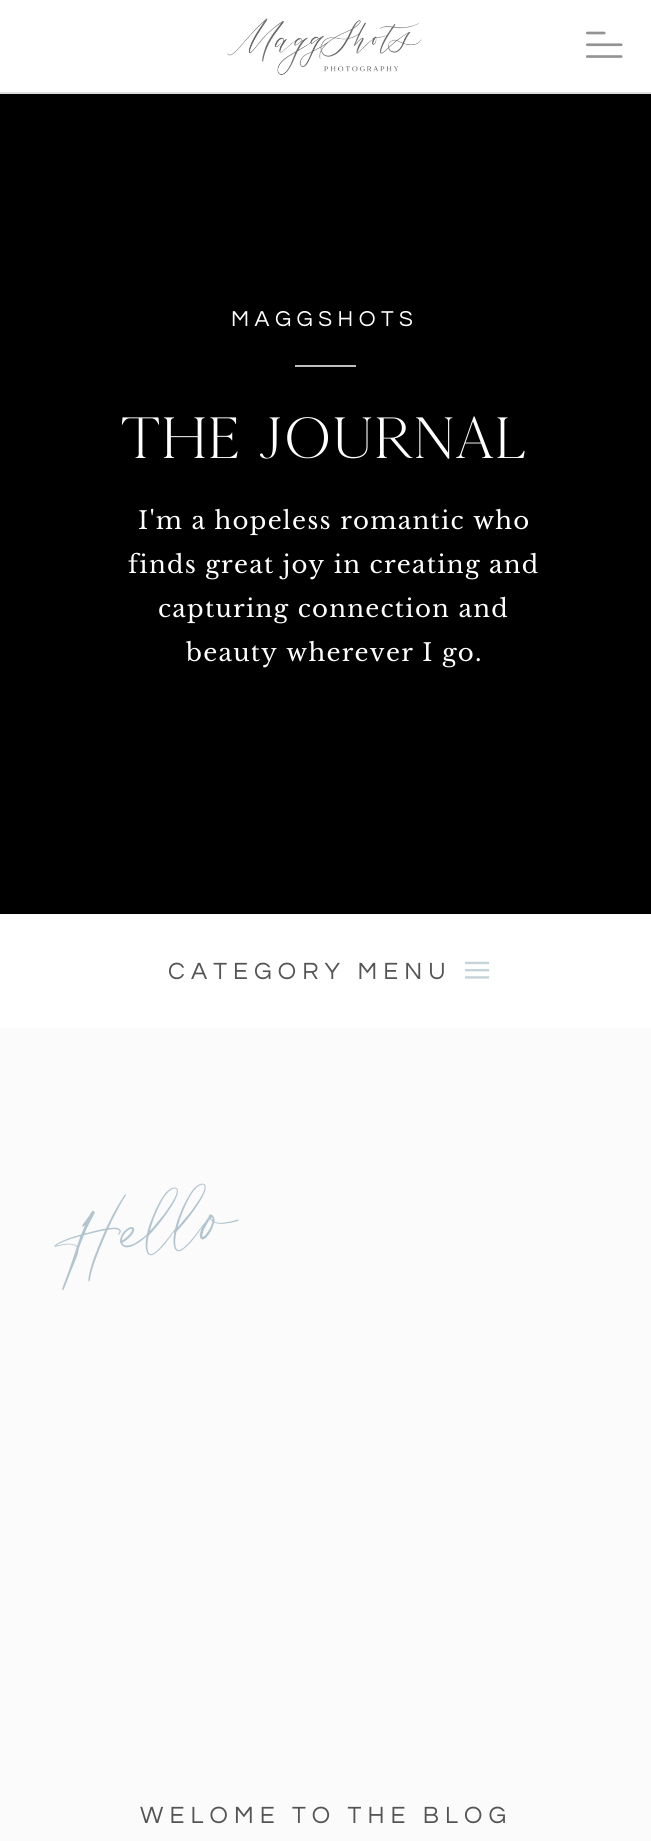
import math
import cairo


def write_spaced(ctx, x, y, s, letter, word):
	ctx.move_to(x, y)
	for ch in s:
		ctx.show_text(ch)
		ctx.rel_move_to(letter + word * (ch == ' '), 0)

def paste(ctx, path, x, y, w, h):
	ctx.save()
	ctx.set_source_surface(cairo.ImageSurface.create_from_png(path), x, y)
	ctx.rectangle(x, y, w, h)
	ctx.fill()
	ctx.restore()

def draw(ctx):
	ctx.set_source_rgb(1, 1, 1)
	ctx.paint()
	paste(ctx, 'media/1.png', 227, 18, 195, 57)
	paste(ctx, 'media/2.png', 586, 31, 37, 27)
	ctx.set_source_rgb(0.867, 0.867, 0.867)
	ctx.rectangle(0, 92, 651, 2)
	ctx.fill()
	ctx.set_source_rgb(0, 0, 0)
	ctx.rectangle(0, 94, 651, 820)
	ctx.fill()
	ctx.select_font_face('Questrial')
	ctx.set_font_size(22.4)
	ctx.set_source_rgb(1, 1, 1)
	write_spaced(ctx, 231, 326, 'MAGGSHOTS', 5.5, 0)
	ctx.set_source_rgb(0.749, 0.749, 0.749)
	ctx.rectangle(295, 365, 61, 2)
	ctx.fill()
	ctx.select_font_face('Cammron')
	ctx.set_font_size(63)
	ctx.set_source_rgb(1, 1, 1)
	write_spaced(ctx, 121, 458, 'THE JOURNAL', 1.25, 0)
	ctx.select_font_face('Libre Baskerville')
	ctx.set_font_size(24.4)
	for x, y, s in [
		(138, 529, 'I\'m a hopeless romantic who'),
		(128, 573, 'finds great joy in creating and'),
		(158, 617, 'capturing connection and'),
		(186, 661, 'beauty wherever I go.'),
	]:
		write_spaced(ctx, x, y, s, 1.25, 0)
	ctx.select_font_face('Questrial')
	ctx.set_source_rgb(0.329, 0.329, 0.329)
	write_spaced(ctx, 168, 979, 'CATEGORY MENU', 6.1, 0)
	paste(ctx, 'media/3.png', 465, 961, 25, 18)
	ctx.set_source_rgb(0.984, 0.984, 0.984)
	ctx.rectangle(0, 1028, 651, 813)
	ctx.fill()
	paste(ctx, 'media/4.png', 54, 1183, 185, 107)
	ctx.set_source_rgb(0.329, 0.329, 0.329)
	write_spaced(ctx, 140, 1823, 'WELOME TO THE BLOG', 6.1, 0)


surface = cairo.ImageSurface(cairo.FORMAT_RGB24, 651, 1841)
ctx = cairo.Context(surface)
options = cairo.FontOptions()
options.set_hint_metrics(cairo.HINT_METRICS_OFF)
options.set_hint_style(cairo.HINT_STYLE_NONE)
ctx.set_font_options(options)
ctx.set_miter_limit(4)
draw(ctx)
surface.write_to_png('image.png')
